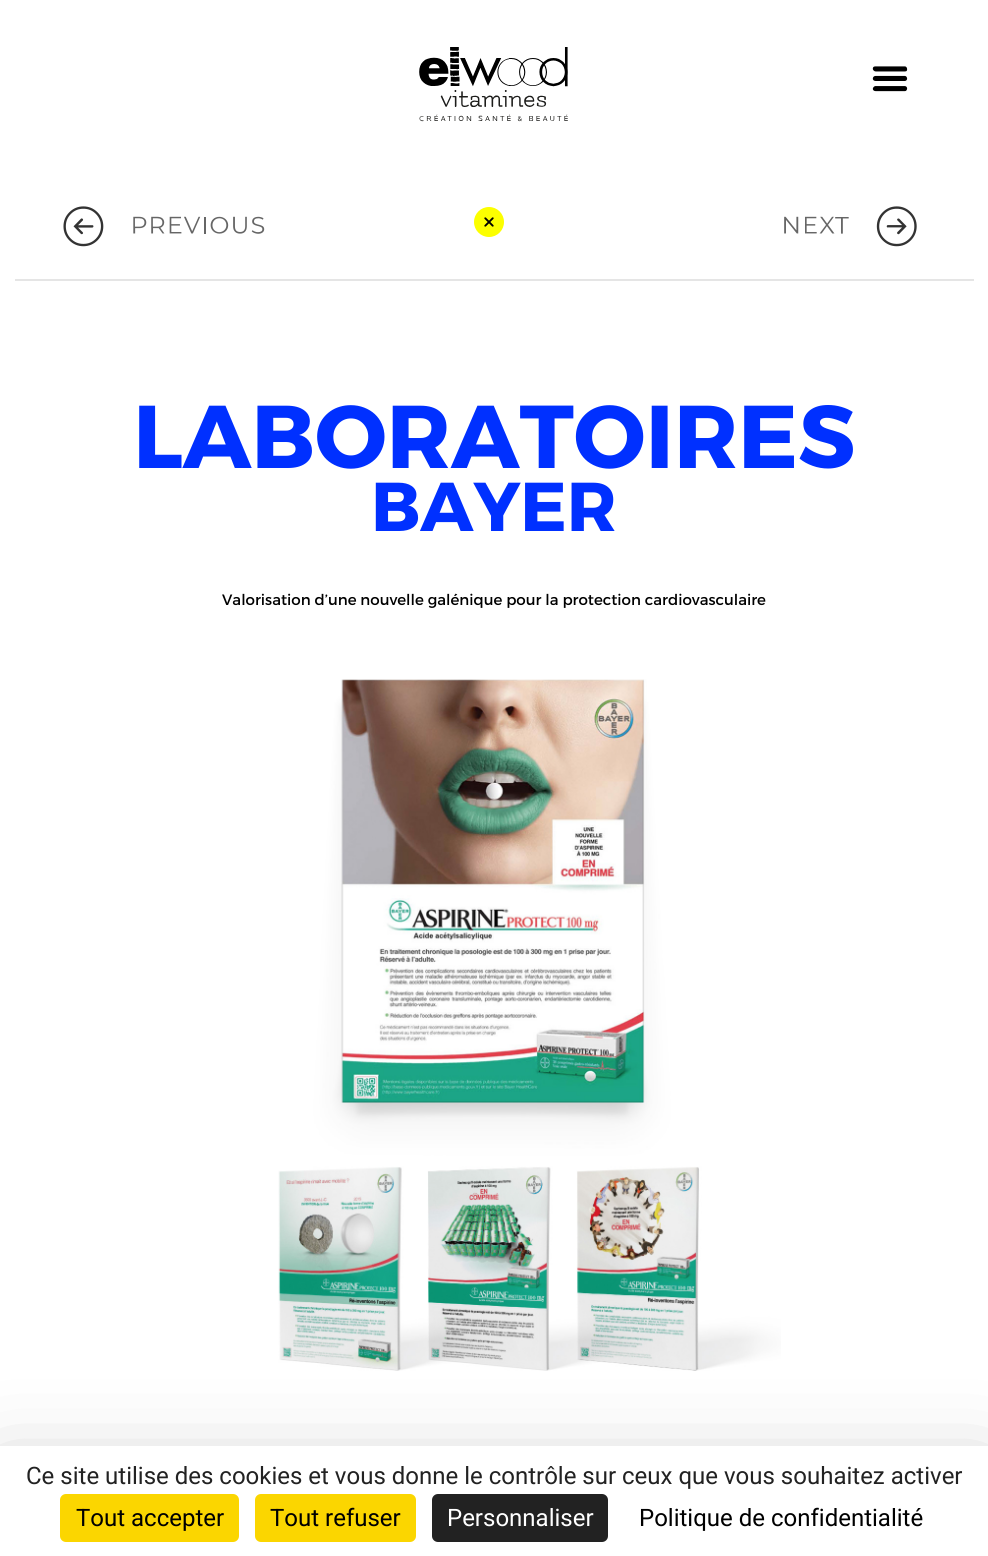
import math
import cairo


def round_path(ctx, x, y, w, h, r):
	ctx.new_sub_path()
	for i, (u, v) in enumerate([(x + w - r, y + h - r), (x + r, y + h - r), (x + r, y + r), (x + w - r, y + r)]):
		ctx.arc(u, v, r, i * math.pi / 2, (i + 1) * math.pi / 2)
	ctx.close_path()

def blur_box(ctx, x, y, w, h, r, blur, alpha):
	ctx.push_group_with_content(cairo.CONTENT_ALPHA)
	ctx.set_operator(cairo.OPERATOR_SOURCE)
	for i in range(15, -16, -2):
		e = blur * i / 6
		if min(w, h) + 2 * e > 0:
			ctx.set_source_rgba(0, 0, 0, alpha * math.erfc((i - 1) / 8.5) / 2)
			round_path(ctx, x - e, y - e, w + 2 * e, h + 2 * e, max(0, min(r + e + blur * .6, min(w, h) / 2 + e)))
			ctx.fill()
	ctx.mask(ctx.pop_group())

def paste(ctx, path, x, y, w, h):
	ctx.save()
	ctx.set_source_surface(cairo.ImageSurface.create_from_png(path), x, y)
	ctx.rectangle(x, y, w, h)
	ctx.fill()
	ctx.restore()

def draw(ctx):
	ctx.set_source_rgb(1, 1, 1)
	ctx.paint()
	paste(ctx, 'media/1.png', 419, 47, 149, 75)
	paste(ctx, 'media/2.png', 872, 66, 36, 26)
	paste(ctx, 'media/3.png', 63, 206, 202, 41)
	ctx.set_source_rgb(0.988, 1, 0)
	ctx.arc(489, 222, 15, 0, 2 * math.pi)
	ctx.fill()
	paste(ctx, 'media/4.png', 484, 217, 10, 10)
	paste(ctx, 'media/5.png', 784, 206, 133, 41)
	ctx.set_source_rgb(0.898, 0.898, 0.898)
	ctx.rectangle(15, 279, 959, 2)
	ctx.fill()
	ctx.select_font_face('Montserrat', cairo.FONT_SLANT_NORMAL, cairo.FONT_WEIGHT_BOLD)
	ctx.set_font_size(89)
	ctx.set_source_rgb(0, 0.188, 1)
	ctx.move_to(133, 468)
	ctx.show_text('LABORATOIRES')
	ctx.set_font_size(69)
	ctx.move_to(371, 531)
	ctx.show_text('BAYER')
	ctx.select_font_face('Montserrat')
	ctx.set_font_size(15)
	ctx.set_source_rgb(0, 0, 0)
	ctx.move_to(222, 605)
	ctx.show_text('Valorisation d’une nouvelle galénique pour la protection cardiovasculaire')
	paste(ctx, 'media/6.png', 278, 679, 503, 692)
	ctx.set_source_rgb(0, 0, 0)
	blur_box(ctx, 0, 1476, 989, 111, 0, 45, 0.25)
	ctx.set_source_rgb(1, 1, 1)
	ctx.rectangle(0, 1446, 988, 110)
	ctx.fill()
	ctx.select_font_face('Roboto')
	ctx.set_font_size(24)
	ctx.set_source_rgb(0.133, 0.133, 0.133)
	ctx.move_to(26, 1484)
	ctx.show_text('Ce site utilise des cookies et vous donne le contrôle sur ceux que vous souhaitez activer')
	ctx.set_source_rgb(0.984, 0.839, 0)
	round_path(ctx, 60, 1494, 179, 48, 6)
	ctx.fill()
	ctx.set_source_rgb(0, 0, 0)
	ctx.move_to(76, 1526)
	ctx.show_text('Tout accepter')
	ctx.set_source_rgb(0.984, 0.839, 0)
	round_path(ctx, 255, 1494, 161, 48, 6)
	ctx.fill()
	ctx.set_source_rgb(0, 0, 0)
	ctx.move_to(270, 1526)
	ctx.show_text('Tout refuser')
	ctx.set_source_rgb(0.133, 0.133, 0.133)
	round_path(ctx, 432, 1494, 176, 48, 6)
	ctx.fill()
	ctx.set_source_rgb(1, 1, 1)
	ctx.move_to(447, 1526)
	ctx.show_text('Personnaliser')
	ctx.set_source_rgb(0, 0, 0)
	ctx.move_to(639, 1526)
	ctx.show_text('Politique de confidentialité')


surface = cairo.ImageSurface(cairo.FORMAT_RGB24, 988, 1556)
ctx = cairo.Context(surface)
options = cairo.FontOptions()
options.set_hint_metrics(cairo.HINT_METRICS_OFF)
options.set_hint_style(cairo.HINT_STYLE_NONE)
ctx.set_font_options(options)
ctx.set_miter_limit(4)
draw(ctx)
surface.write_to_png('image.png')
